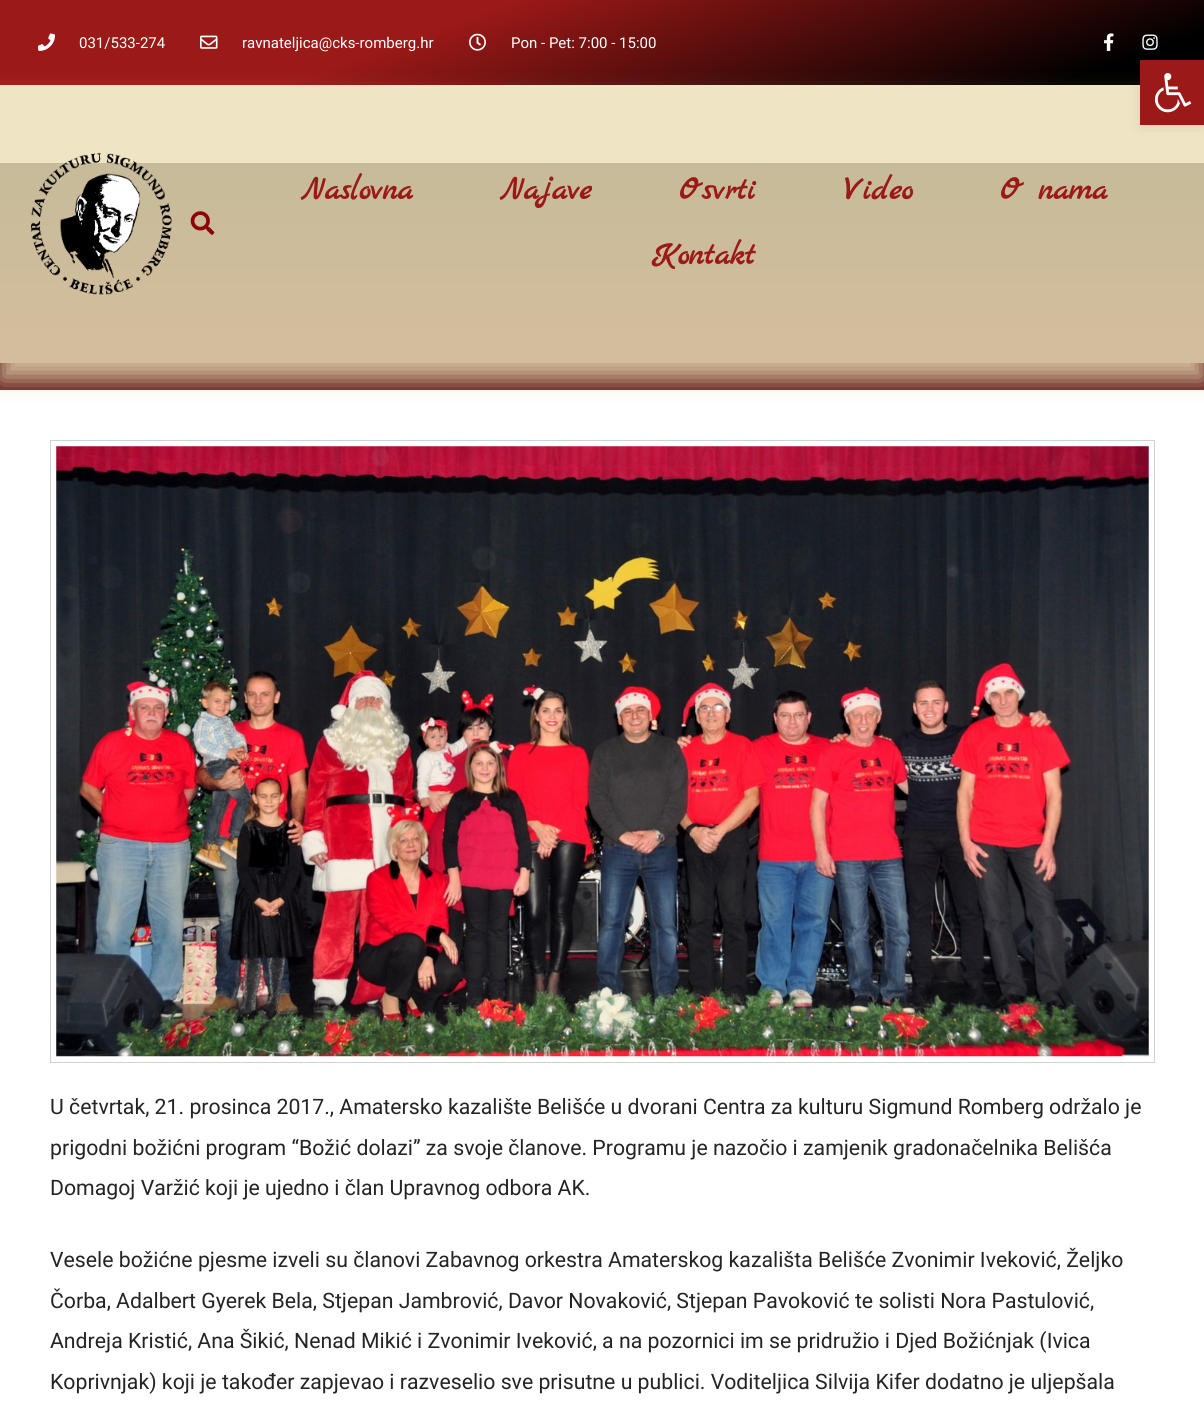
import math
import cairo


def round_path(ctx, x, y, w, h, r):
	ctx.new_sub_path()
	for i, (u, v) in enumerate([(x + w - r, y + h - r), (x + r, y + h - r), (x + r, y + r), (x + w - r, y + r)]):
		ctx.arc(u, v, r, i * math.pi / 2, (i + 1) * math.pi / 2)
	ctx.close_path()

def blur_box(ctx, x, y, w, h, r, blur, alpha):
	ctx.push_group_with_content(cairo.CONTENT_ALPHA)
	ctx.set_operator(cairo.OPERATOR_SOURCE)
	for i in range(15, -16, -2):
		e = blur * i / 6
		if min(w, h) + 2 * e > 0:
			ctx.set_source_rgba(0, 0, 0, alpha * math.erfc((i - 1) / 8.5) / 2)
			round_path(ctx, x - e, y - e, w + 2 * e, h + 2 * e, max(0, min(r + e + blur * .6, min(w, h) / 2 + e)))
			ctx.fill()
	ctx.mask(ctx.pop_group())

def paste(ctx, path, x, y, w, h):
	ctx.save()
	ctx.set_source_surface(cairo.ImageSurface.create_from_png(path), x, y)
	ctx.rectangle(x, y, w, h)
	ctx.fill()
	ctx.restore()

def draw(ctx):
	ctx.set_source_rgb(0.961, 0.961, 0.961)
	ctx.paint()
	gradient = cairo.LinearGradient(518, -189, 687, 274)
	gradient.add_color_stop_rgba(0.36, 0.608, 0.098, 0.09, 1)
	gradient.add_color_stop_rgba(0.9, 0, 0, 0, 1)
	ctx.set_source(gradient)
	ctx.rectangle(0, 0, 1204, 85)
	ctx.fill()
	paste(ctx, 'media/1.png', 38, 33, 17, 18)
	ctx.select_font_face('Roboto')
	ctx.set_font_size(15)
	ctx.set_source_rgb(1, 1, 1)
	ctx.move_to(79, 48)
	ctx.show_text('031/533-274')
	paste(ctx, 'media/2.png', 200, 35, 18, 14)
	ctx.move_to(242, 48)
	ctx.show_text('ravnateljica@cks-romberg.hr')
	paste(ctx, 'media/3.png', 469, 33, 17, 18)
	ctx.move_to(511, 48)
	ctx.show_text('Pon - Pet: 7:00 - 15:00')
	paste(ctx, 'media/4.png', 1104, 33, 10, 18)
	paste(ctx, 'media/5.png', 1142, 34, 16, 16)
	gradient = cairo.LinearGradient(603, 162, 603, 590)
	gradient.add_color_stop_rgba(0, 0, 0, 0, 1)
	gradient.add_color_stop_rgba(1, 0.698, 0.118, 0.118, 1)
	ctx.set_source(gradient)
	ctx.rectangle(0, 163, 1204, 227)
	ctx.fill()
	ctx.set_source_rgb(0, 0, 0)
	blur_box(ctx, 0, 390, 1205, 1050, 0, 12.5, 0.09)
	ctx.set_source_rgb(1, 1, 1)
	ctx.rectangle(0, 390, 1204, 1012)
	ctx.fill()
	ctx.save()
	ctx.set_fill_rule(cairo.FILL_RULE_EVEN_ODD)
	ctx.new_path()
	ctx.move_to(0, 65)
	ctx.line_to(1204, 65)
	ctx.line_to(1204, 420)
	ctx.line_to(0, 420)
	ctx.close_path()
	ctx.move_to(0, 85)
	ctx.line_to(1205, 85)
	ctx.line_to(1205, 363)
	ctx.line_to(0, 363)
	ctx.close_path()
	ctx.clip()
	ctx.set_source_rgb(0.933, 0.882, 0.729)
	blur_box(ctx, 0, 104, 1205, 277, 0, 12.5, 0.83)
	ctx.restore()
	ctx.set_source_rgba(0.933, 0.882, 0.729, 0.83)
	ctx.rectangle(0, 85, 1204, 278)
	ctx.fill()
	paste(ctx, 'media/6.png', 31, 153, 141, 142)
	paste(ctx, 'media/7.png', 190, 211, 25, 24)
	ctx.select_font_face('Marck Script', cairo.FONT_SLANT_NORMAL, cairo.FONT_WEIGHT_BOLD)
	ctx.set_font_size(32.5)
	ctx.set_source_rgb(0.608, 0.098, 0.09)
	for x, y, s in [
		(301, 199, 'Naslovna'),
		(500, 199, 'Najave'),
		(679, 199, 'Osvrti'),
		(844, 199, 'Video'),
		(1000, 199, 'O nama'),
		(652, 264, 'Kontakt'),
	]:
		ctx.move_to(x, y)
		ctx.show_text(s)
	ctx.set_source_rgb(0, 0, 0)
	blur_box(ctx, 1140, 60, 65, 65, 0, 6, 0.1)
	ctx.set_source_rgb(0.608, 0.098, 0.09)
	ctx.rectangle(1140, 60, 64, 65)
	ctx.fill()
	paste(ctx, 'media/8.png', 1154, 73, 38, 40)
	ctx.rectangle(50.5, 440.5, 1104, 622)
	ctx.set_source_rgb(0.82, 0.82, 0.82)
	ctx.set_line_width(1)
	ctx.stroke()
	paste(ctx, 'media/9.png', 56, 446, 1093, 611)
	ctx.select_font_face('Roboto')
	ctx.set_font_size(21.25)
	ctx.set_source_rgb(0.141, 0.141, 0.141)
	for x, y, s in [
		(50, 1114, 'U četvrtak, 21. prosinca 2017., Amatersko kazalište Belišće u dvorani Centra za kulturu Sigmund Romberg održalo je'),
		(50, 1155, 'prigodni božićni program “Božić dolazi” za svoje članove. Programu je nazočio i zamjenik gradonačelnika Belišća'),
		(50, 1195, 'Domagoj Varžić koji je ujedno i član Upravnog odbora AK.'),
		(50, 1267, 'Vesele božićne pjesme izveli su članovi Zabavnog orkestra Amaterskog kazališta Belišće Zvonimir Iveković, Željko'),
		(50, 1308, 'Čorba, Adalbert Gyerek Bela, Stjepan Jambrović, Davor Novaković, Stjepan Pavoković te solisti Nora Pastulović,'),
		(50, 1348, 'Andreja Kristić, Ana Šikić, Nenad Mikić i Zvonimir Iveković, a na pozornici im se pridružio i Djed Božićnjak (Ivica'),
		(50, 1389, 'Koprivnjak) koji je također zapjevao i razveselio sve prisutne u publici. Voditeljica Silvija Kifer dodatno je uljepšala'),
	]:
		ctx.move_to(x, y)
		ctx.show_text(s)


surface = cairo.ImageSurface(cairo.FORMAT_RGB24, 1204, 1402)
ctx = cairo.Context(surface)
options = cairo.FontOptions()
options.set_hint_metrics(cairo.HINT_METRICS_OFF)
options.set_hint_style(cairo.HINT_STYLE_NONE)
ctx.set_font_options(options)
ctx.set_miter_limit(4)
draw(ctx)
surface.write_to_png('image.png')
